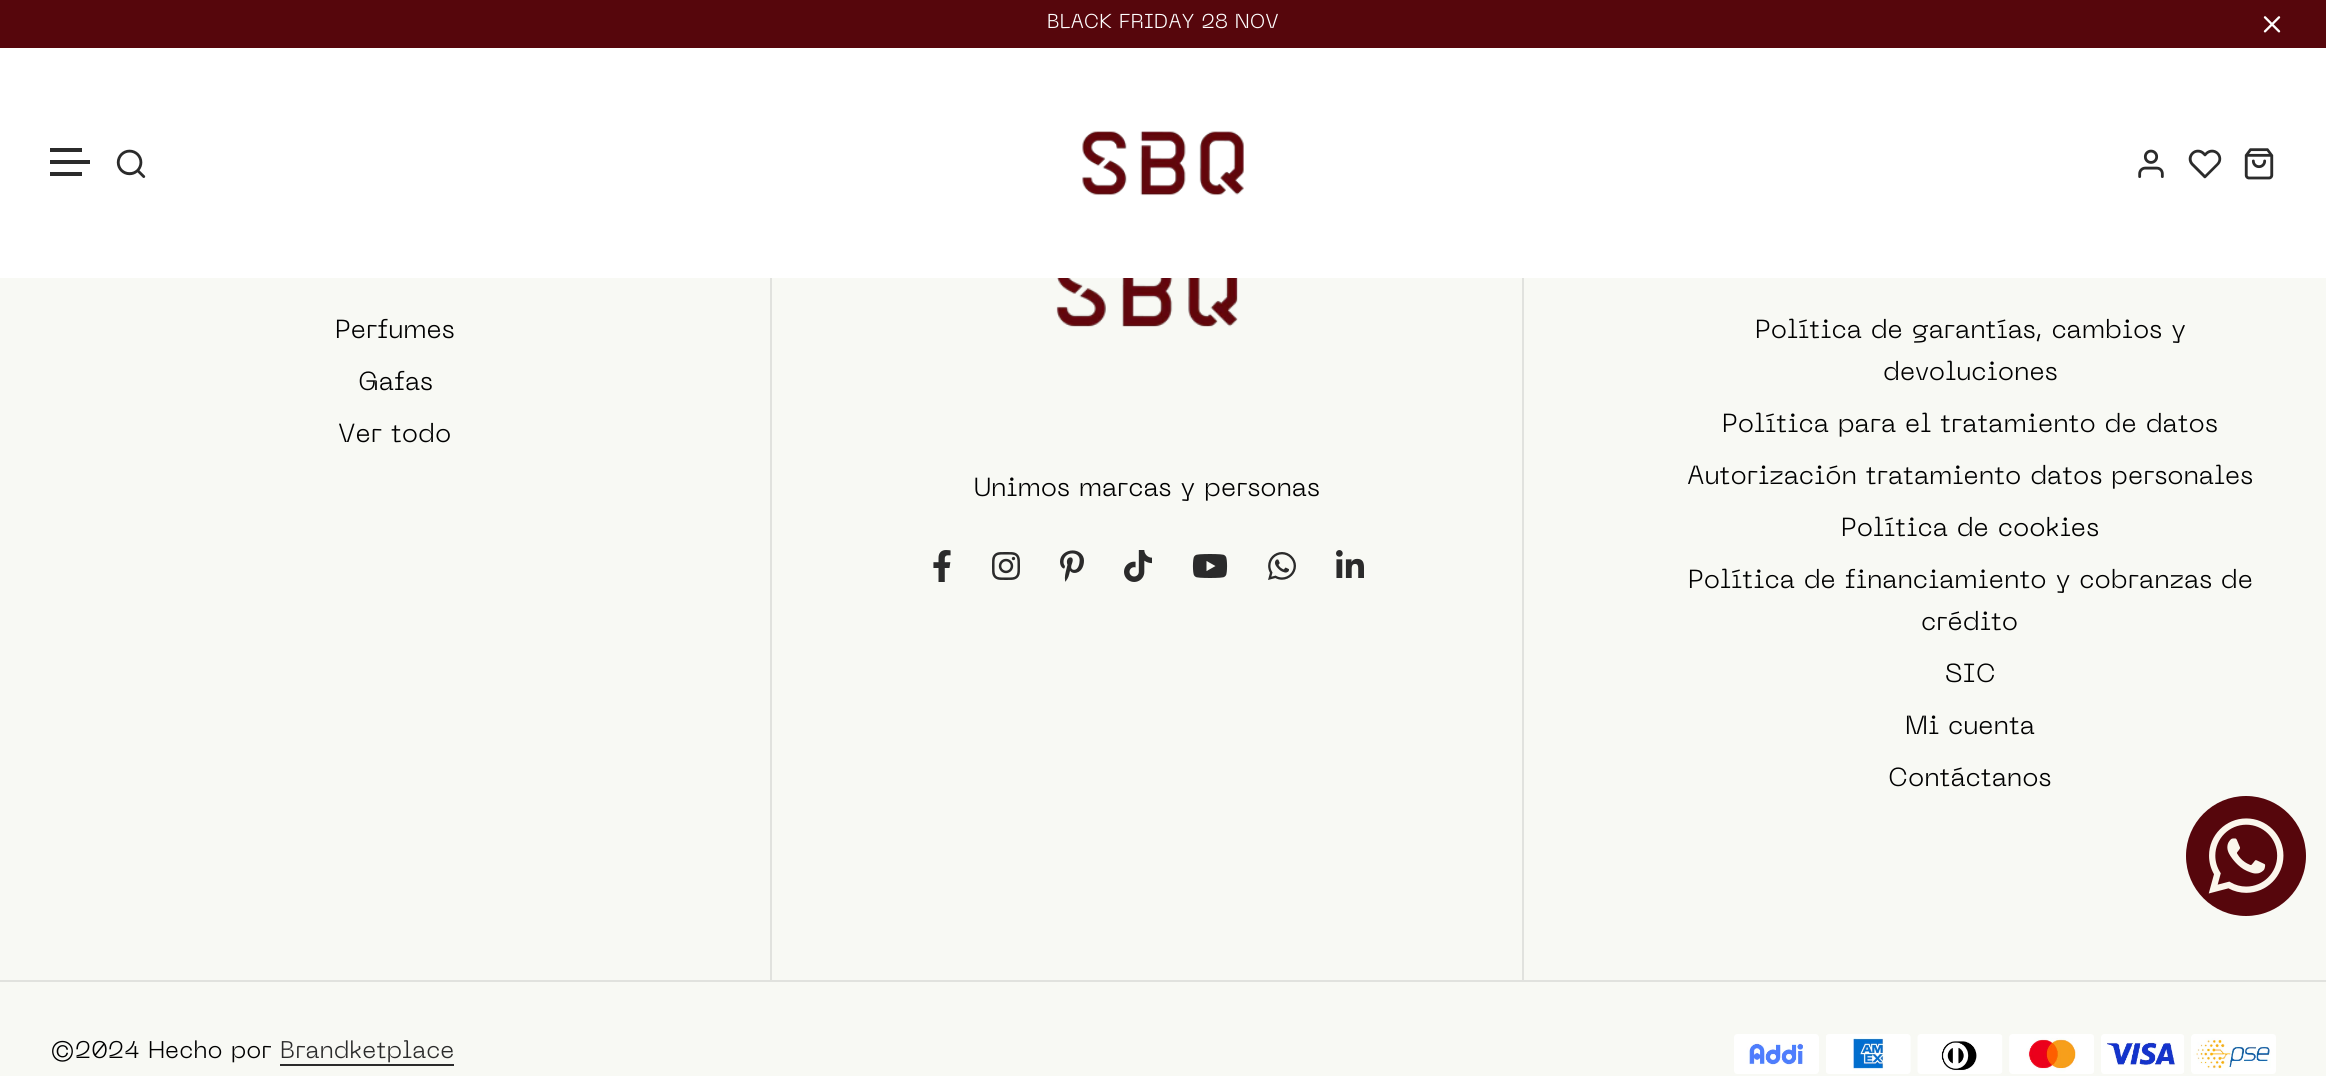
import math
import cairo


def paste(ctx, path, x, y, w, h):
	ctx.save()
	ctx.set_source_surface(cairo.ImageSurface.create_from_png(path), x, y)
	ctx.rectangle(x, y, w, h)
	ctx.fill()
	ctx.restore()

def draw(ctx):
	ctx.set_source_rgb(0.969, 0.973, 0.957)
	ctx.paint()
	ctx.set_source_rgb(0.337, 0.027, 0.047)
	ctx.rectangle(0, 0, 2326, 48)
	ctx.fill()
	ctx.select_font_face('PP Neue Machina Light')
	ctx.set_font_size(20)
	ctx.set_source_rgb(1, 1, 1)
	ctx.move_to(1047, 28)
	ctx.show_text('BLACK FRIDAY 28 NOV')
	paste(ctx, 'media/1.png', 2263, 16, 18, 17)
	ctx.rectangle(0, 48, 2326, 230)
	ctx.fill()
	ctx.set_source_rgb(0.169, 0.169, 0.169)
	ctx.rectangle(50, 148, 32, 4)
	ctx.rectangle(50, 160, 40, 4)
	ctx.rectangle(50, 172, 32, 4)
	ctx.fill()
	paste(ctx, 'media/2.png', 116, 149, 30, 29)
	paste(ctx, 'media/3.png', 1082, 131, 162, 65)
	paste(ctx, 'media/4.png', 2138, 149, 26, 29)
	paste(ctx, 'media/5.png', 2188, 149, 34, 30)
	paste(ctx, 'media/6.png', 2244, 148, 30, 32)
	ctx.set_source_rgb(0.882, 0.886, 0.871)
	ctx.rectangle(0, 980, 2326, 2)
	ctx.fill()
	ctx.rectangle(770, 278, 2, 702)
	ctx.fill()
	ctx.set_font_size(26)
	ctx.set_source_rgb(0, 0, 0)
	for x, y, s in [
		(335, 338, 'Perfumes'),
		(358, 390, 'Gafas'),
		(338, 442, 'Ver todo'),
	]:
		ctx.move_to(x, y)
		ctx.show_text(s)
	ctx.set_source_rgb(0.882, 0.886, 0.871)
	ctx.rectangle(1522, 278, 2, 702)
	ctx.fill()
	paste(ctx, 'media/7.png', 1056, 278, 182, 49)
	ctx.set_source_rgb(0, 0, 0)
	ctx.move_to(974, 496)
	ctx.show_text('Unimos marcas y personas')
	paste(ctx, 'media/8.png', 933, 550, 18, 32)
	paste(ctx, 'media/9.png', 992, 552, 28, 28)
	paste(ctx, 'media/10.png', 1060, 550, 24, 32)
	paste(ctx, 'media/11.png', 1124, 550, 28, 32)
	paste(ctx, 'media/12.png', 1192, 554, 36, 24)
	paste(ctx, 'media/13.png', 1268, 552, 28, 28)
	paste(ctx, 'media/14.png', 1336, 550, 28, 28)
	for x, y, s in [
		(1755, 338, 'Política de garantías, cambios y'),
		(1883, 380, 'devoluciones'),
		(1722, 432, 'Política para el tratamiento de datos'),
		(1687, 484, 'Autorización tratamiento datos personales'),
		(1841, 536, 'Política de cookies'),
		(1688, 588, 'Política de financiamiento y cobranzas de'),
		(1921, 630, 'crédito'),
		(1945, 682, 'SIC'),
		(1905, 734, 'Mi cuenta'),
		(1888, 786, 'Contáctanos'),
	]:
		ctx.move_to(x, y)
		ctx.show_text(s)
	ctx.set_font_size(24)
	ctx.move_to(50, 1058)
	ctx.show_text('©2024 Hecho por')
	ctx.set_source_rgb(0.169, 0.169, 0.169)
	ctx.move_to(280, 1058)
	ctx.show_text('Brandketplace')
	ctx.rectangle(280, 1064, 174, 2)
	ctx.fill()
	paste(ctx, 'media/15.png', 1734, 1034, 542, 40)
	ctx.set_source_rgb(0.337, 0.027, 0.047)
	ctx.arc(2246, 856, 60, 0, 2 * math.pi)
	ctx.fill()
	paste(ctx, 'media/16.png', 2208, 818, 76, 76)


surface = cairo.ImageSurface(cairo.FORMAT_RGB24, 2326, 1076)
ctx = cairo.Context(surface)
options = cairo.FontOptions()
options.set_hint_metrics(cairo.HINT_METRICS_OFF)
options.set_hint_style(cairo.HINT_STYLE_NONE)
ctx.set_font_options(options)
ctx.set_miter_limit(4)
draw(ctx)
surface.write_to_png('image.png')
